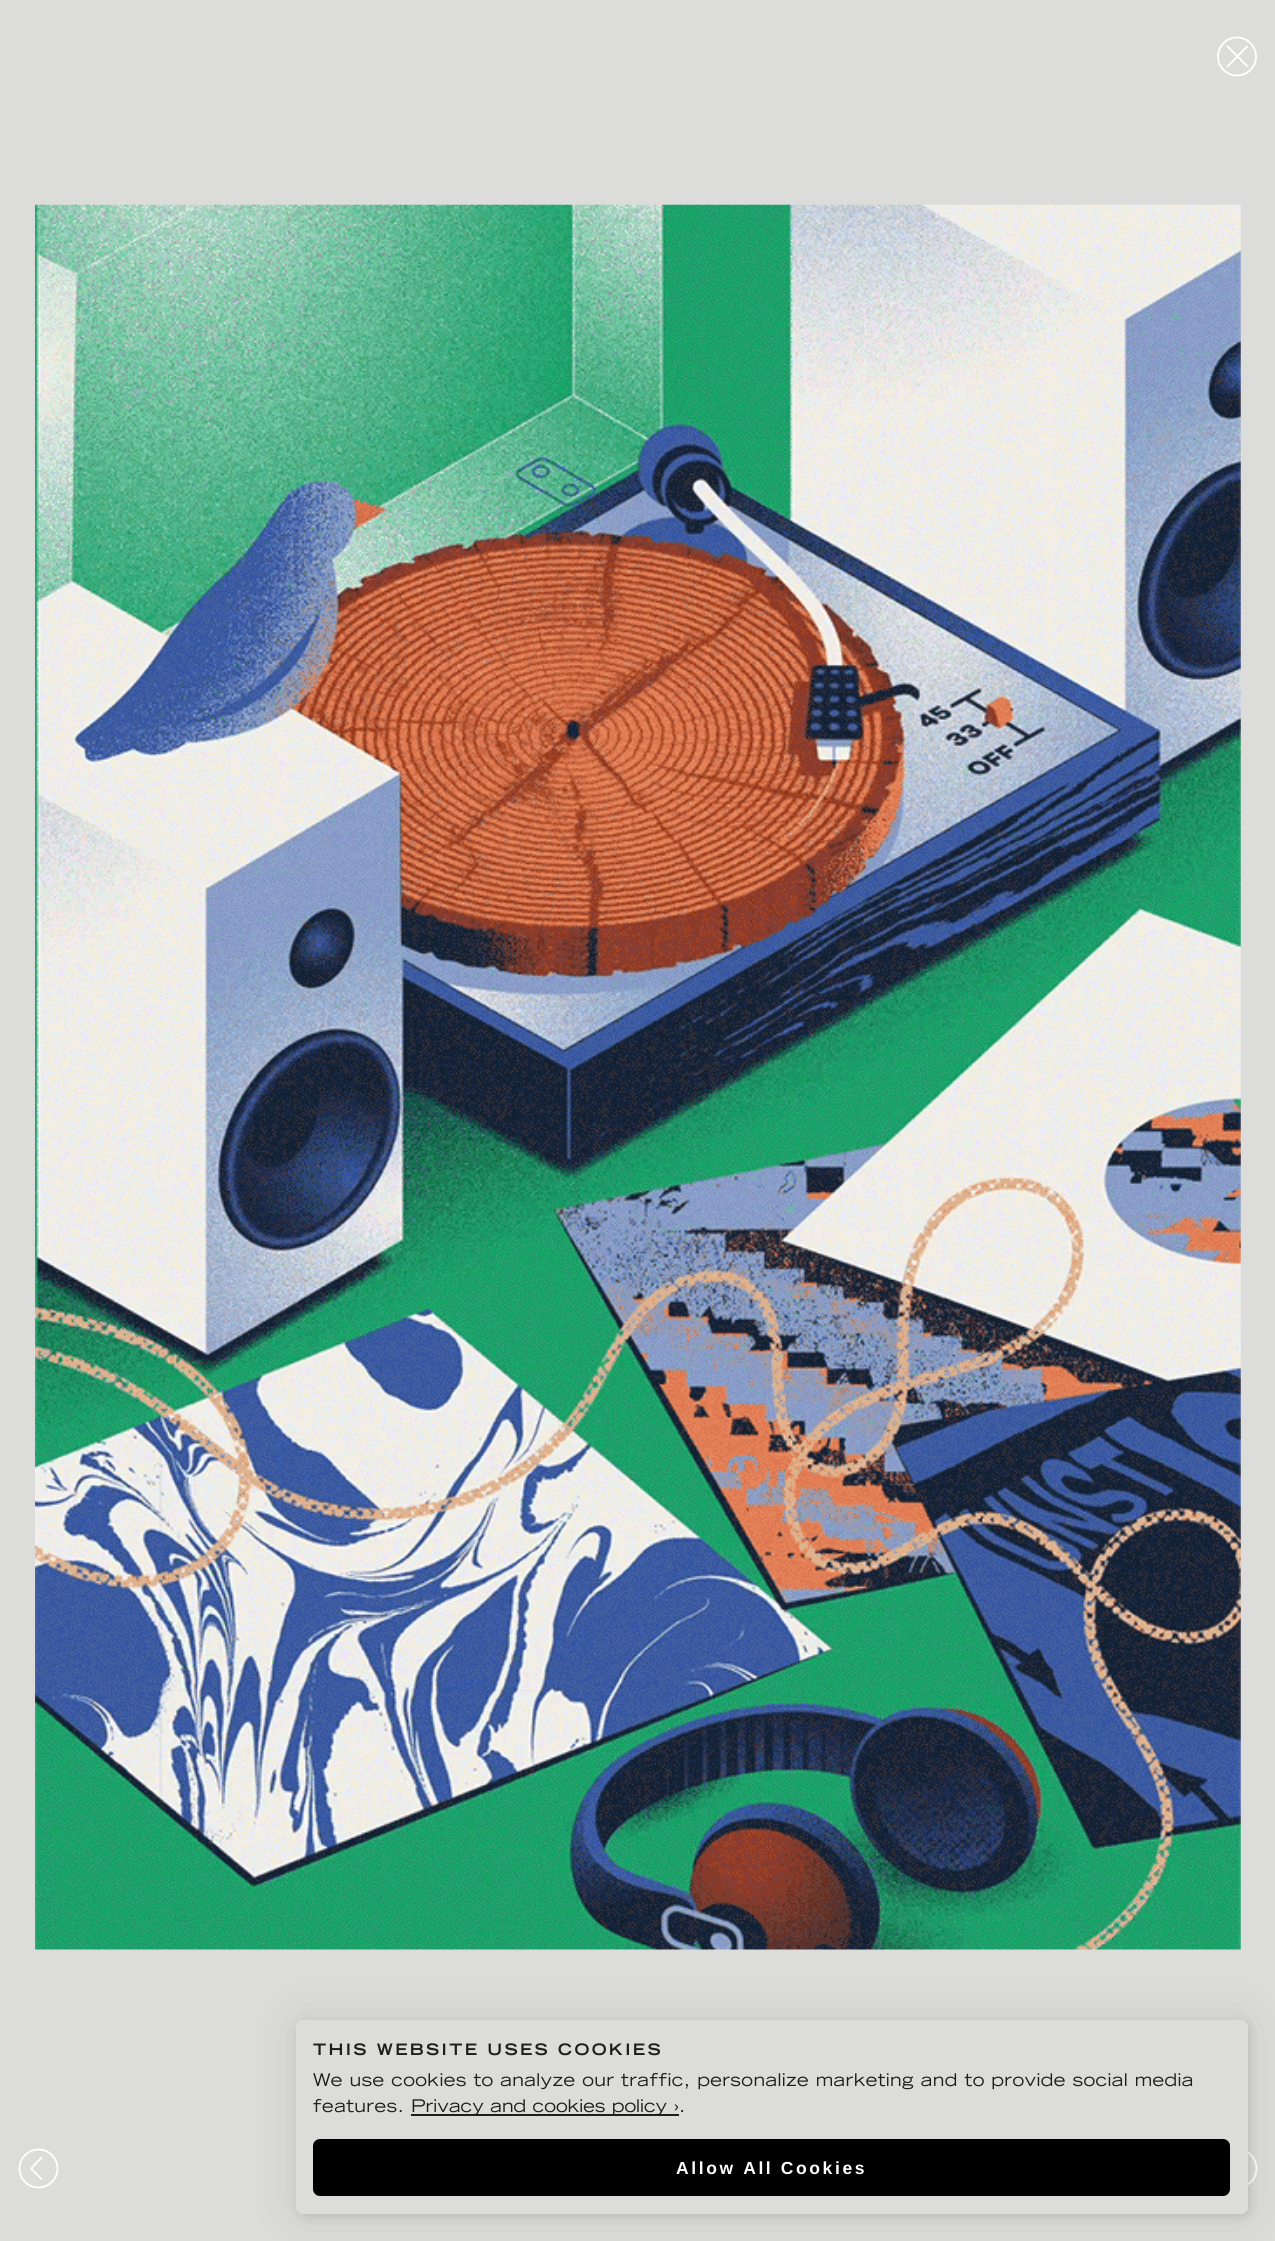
import math
import cairo


def write_spaced(ctx, x, y, s, letter, word):
	ctx.move_to(x, y)
	for ch in s:
		ctx.show_text(ch)
		ctx.rel_move_to(letter + word * (ch == ' '), 0)

def round_path(ctx, x, y, w, h, r):
	ctx.new_sub_path()
	for i, (u, v) in enumerate([(x + w - r, y + h - r), (x + r, y + h - r), (x + r, y + r), (x + w - r, y + r)]):
		ctx.arc(u, v, r, i * math.pi / 2, (i + 1) * math.pi / 2)
	ctx.close_path()

def blur_box(ctx, x, y, w, h, r, blur, alpha):
	ctx.push_group_with_content(cairo.CONTENT_ALPHA)
	ctx.set_operator(cairo.OPERATOR_SOURCE)
	for i in range(15, -16, -2):
		e = blur * i / 6
		if min(w, h) + 2 * e > 0:
			ctx.set_source_rgba(0, 0, 0, alpha * math.erfc((i - 1) / 8.5) / 2)
			round_path(ctx, x - e, y - e, w + 2 * e, h + 2 * e, max(0, min(r + e + blur * .6, min(w, h) / 2 + e)))
			ctx.fill()
	ctx.mask(ctx.pop_group())

def paste(ctx, path, x, y, w, h):
	ctx.save()
	ctx.set_source_surface(cairo.ImageSurface.create_from_png(path), x, y)
	ctx.rectangle(x, y, w, h)
	ctx.fill()
	ctx.restore()

def draw(ctx):
	ctx.set_source_rgb(0.863, 0.863, 0.855)
	ctx.paint()
	ctx.arc(1237, 56.5, 19, 0, 2 * math.pi)
	ctx.set_source_rgb(1, 1, 1)
	ctx.set_line_width(1.8)
	ctx.stroke()
	ctx.new_path()
	ctx.move_to(1227, 67)
	ctx.line_to(1247.5, 46)
	ctx.move_to(1247.5, 66.5)
	ctx.line_to(1227, 46)
	ctx.stroke()
	paste(ctx, 'media/1.png', 35, 204, 1206, 1746)
	ctx.arc(38.5, 2168.5, 19, 0, 2 * math.pi)
	ctx.stroke()
	ctx.new_path()
	ctx.move_to(42, 2157)
	ctx.line_to(31, 2168.5)
	ctx.line_to(42, 2179.5)
	ctx.stroke()
	ctx.arc(1237.5, 2168.5, 19, 0, 2 * math.pi)
	ctx.stroke()
	ctx.set_source_rgb(0, 0, 0)
	blur_box(ctx, 298, 2023, 952, 194, 7, 4.5, 0.1)
	blur_box(ctx, 296, 2020, 952, 194, 7, 22, 0.1)
	ctx.set_source_rgb(0.863, 0.863, 0.855)
	round_path(ctx, 296, 2020, 952, 194, 7)
	ctx.fill()
	ctx.select_font_face('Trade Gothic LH', cairo.FONT_SLANT_NORMAL, cairo.FONT_WEIGHT_BOLD)
	ctx.set_font_size(15.75)
	ctx.set_source_rgb(0.118, 0.118, 0.118)
	write_spaced(ctx, 313, 2055, 'THIS WEBSITE USES COOKIES', 2.35, 0)
	ctx.select_font_face('Trade Gothic LH')
	ctx.set_font_size(17.5)
	write_spaced(ctx, 313, 2086, 'We use cookies to analyze our traffic, personalize marketing and to provide social media', 0.35, 0)
	write_spaced(ctx, 313, 2112, 'features.', 0.35, 0)
	ctx.rectangle(411, 2114, 268, 2)
	ctx.fill()
	ctx.move_to(411, 2112)
	ctx.show_text('Privacy and cookies policy ›')
	write_spaced(ctx, 679, 2112, '.', 0.35, 0)
	ctx.set_source_rgb(0, 0, 0)
	round_path(ctx, 314, 2140, 915, 55, 6)
	ctx.fill_preserve()
	ctx.set_line_width(2)
	ctx.stroke()
	ctx.select_font_face('Liberation Sans', cairo.FONT_SLANT_NORMAL, cairo.FONT_WEIGHT_BOLD)
	ctx.set_source_rgb(1, 1, 1)
	write_spaced(ctx, 676, 2174, 'Allow All Cookies', 2.6, 0)


surface = cairo.ImageSurface(cairo.FORMAT_RGB24, 1275, 2241)
ctx = cairo.Context(surface)
options = cairo.FontOptions()
options.set_hint_metrics(cairo.HINT_METRICS_OFF)
options.set_hint_style(cairo.HINT_STYLE_NONE)
ctx.set_font_options(options)
ctx.set_miter_limit(4)
draw(ctx)
surface.write_to_png('image.png')
